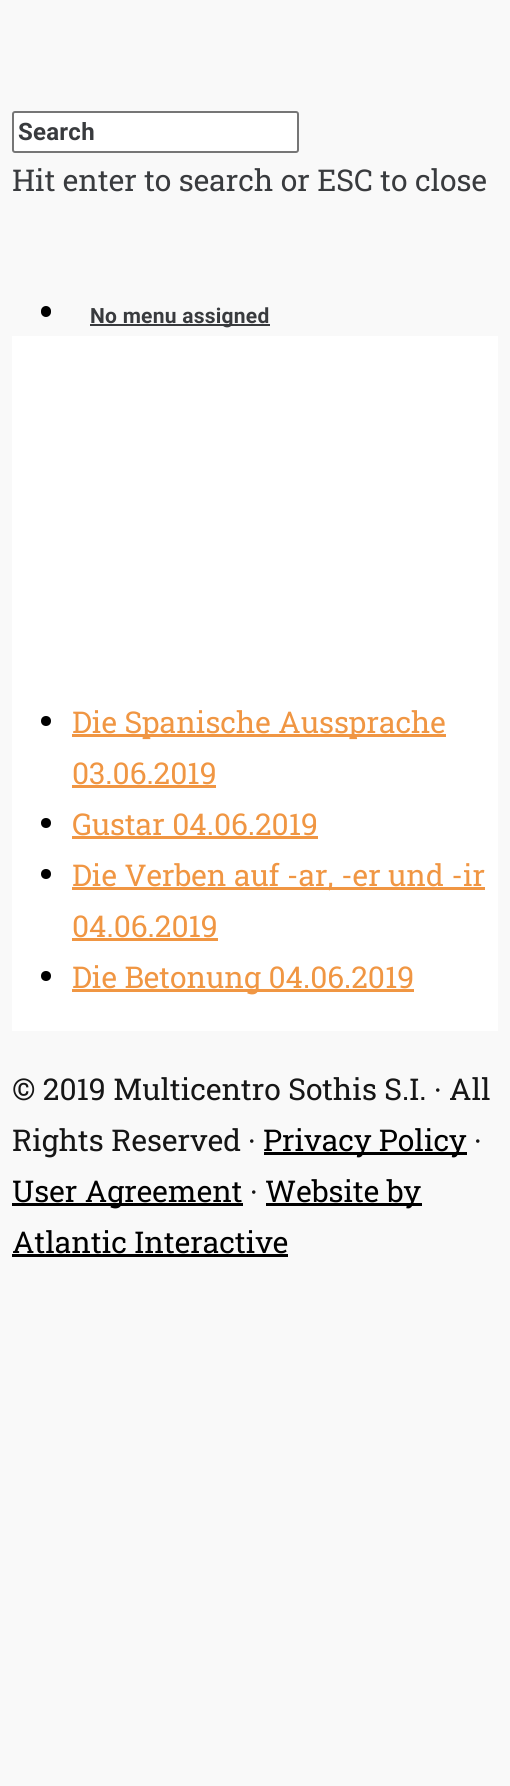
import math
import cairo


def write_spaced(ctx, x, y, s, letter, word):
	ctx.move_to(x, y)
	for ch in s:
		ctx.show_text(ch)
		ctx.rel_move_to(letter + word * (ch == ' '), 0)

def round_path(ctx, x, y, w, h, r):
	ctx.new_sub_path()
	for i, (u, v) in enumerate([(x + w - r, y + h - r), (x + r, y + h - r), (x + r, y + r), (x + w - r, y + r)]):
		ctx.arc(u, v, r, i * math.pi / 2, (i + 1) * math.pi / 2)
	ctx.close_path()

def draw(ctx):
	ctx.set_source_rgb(0.976, 0.976, 0.976)
	ctx.paint()
	ctx.set_source_rgb(1, 1, 1)
	ctx.rectangle(12, 336, 486, 695)
	ctx.fill()
	round_path(ctx, 13, 112, 285, 40, 2)
	ctx.fill_preserve()
	ctx.set_source_rgb(0.463, 0.463, 0.463)
	ctx.stroke()
	ctx.select_font_face('Roboto', cairo.FONT_SLANT_NORMAL, cairo.FONT_WEIGHT_BOLD)
	ctx.set_font_size(24)
	ctx.set_source_rgb(0.224, 0.231, 0.243)
	write_spaced(ctx, 18, 140, 'Search', 0.25, 0)
	ctx.select_font_face('Roboto Slab')
	ctx.set_font_size(30)
	ctx.move_to(12, 191)
	ctx.show_text('Hit enter to search or ESC to close')
	ctx.set_source_rgb(0, 0, 0)
	round_path(ctx, 41, 306, 10, 11, 5)
	ctx.fill()
	ctx.set_source_rgb(0.224, 0.231, 0.243)
	ctx.rectangle(90, 324, 180, 2)
	ctx.fill()
	ctx.select_font_face('Roboto', cairo.FONT_SLANT_NORMAL, cairo.FONT_WEIGHT_BOLD)
	ctx.set_font_size(21)
	write_spaced(ctx, 90, 323, 'No menu assigned', 0.25, 0)
	ctx.set_source_rgb(0, 0, 0)
	ctx.new_path()
	ctx.arc(46, 721, 5, 0, 2 * math.pi)
	ctx.fill()
	ctx.set_source_rgb(0.941, 0.588, 0.263)
	ctx.rectangle(72, 734, 374, 3)
	ctx.fill()
	ctx.select_font_face('Roboto Slab')
	ctx.set_font_size(30)
	ctx.move_to(72, 733)
	ctx.show_text('Die Spanische Aussprache')
	ctx.move_to(72, 784)
	ctx.show_text('03.06.2019')
	ctx.rectangle(72, 785, 144, 3)
	ctx.fill()
	ctx.set_source_rgb(0, 0, 0)
	ctx.arc(46, 823, 5, 0, 2 * math.pi)
	ctx.fill()
	ctx.set_source_rgb(0.941, 0.588, 0.263)
	ctx.move_to(72, 835)
	ctx.show_text('Gustar 04.06.2019')
	ctx.rectangle(72, 836, 246, 3)
	ctx.fill()
	ctx.set_source_rgb(0, 0, 0)
	ctx.arc(46, 874, 5, 0, 2 * math.pi)
	ctx.fill()
	ctx.set_source_rgb(0.941, 0.588, 0.263)
	ctx.rectangle(72, 887, 413, 3)
	ctx.fill()
	ctx.move_to(72, 886)
	ctx.show_text('Die Verben auf -ar, -er und -ir')
	ctx.move_to(72, 937)
	ctx.show_text('04.06.2019')
	ctx.rectangle(72, 938, 146, 3)
	ctx.fill()
	ctx.set_source_rgb(0, 0, 0)
	ctx.arc(46, 976, 5, 0, 2 * math.pi)
	ctx.fill()
	ctx.set_source_rgb(0.941, 0.588, 0.263)
	ctx.rectangle(72, 989, 342, 3)
	ctx.fill()
	ctx.move_to(72, 988)
	ctx.show_text('Die Betonung 04.06.2019')
	ctx.set_source_rgb(0.086, 0.086, 0.086)
	ctx.move_to(12, 1100)
	ctx.show_text('© 2019 Multicentro Sothis S.I.')
	ctx.select_font_face('Liberation Serif')
	ctx.move_to(434, 1100)
	ctx.show_text('∙')
	ctx.select_font_face('Roboto Slab')
	ctx.move_to(449, 1100)
	ctx.show_text('All')
	ctx.move_to(12, 1151)
	ctx.show_text('Rights Reserved')
	ctx.select_font_face('Liberation Serif')
	ctx.move_to(248, 1151)
	ctx.show_text('∙')
	ctx.set_source_rgb(0, 0, 0)
	ctx.rectangle(264, 1152, 203, 3)
	ctx.fill()
	ctx.select_font_face('Roboto Slab')
	ctx.move_to(263, 1151)
	ctx.show_text('Privacy Policy')
	ctx.select_font_face('Liberation Serif')
	ctx.set_source_rgb(0.086, 0.086, 0.086)
	ctx.move_to(474, 1151)
	ctx.show_text('∙')
	ctx.set_source_rgb(0, 0, 0)
	ctx.rectangle(12, 1203, 231, 3)
	ctx.fill()
	ctx.select_font_face('Roboto Slab')
	ctx.move_to(12, 1202)
	ctx.show_text('User Agreement')
	ctx.select_font_face('Liberation Serif')
	ctx.set_source_rgb(0.086, 0.086, 0.086)
	ctx.move_to(250, 1202)
	ctx.show_text('∙')
	ctx.set_source_rgb(0, 0, 0)
	ctx.rectangle(266, 1203, 156, 3)
	ctx.fill()
	ctx.select_font_face('Roboto Slab')
	ctx.move_to(265, 1202)
	ctx.show_text('Website by')
	ctx.move_to(12, 1253)
	ctx.show_text('Atlantic Interactive')
	ctx.rectangle(12, 1254, 276, 3)
	ctx.fill()


surface = cairo.ImageSurface(cairo.FORMAT_RGB24, 510, 1786)
ctx = cairo.Context(surface)
options = cairo.FontOptions()
options.set_hint_metrics(cairo.HINT_METRICS_OFF)
options.set_hint_style(cairo.HINT_STYLE_NONE)
ctx.set_font_options(options)
ctx.set_miter_limit(4)
draw(ctx)
surface.write_to_png('image.png')
